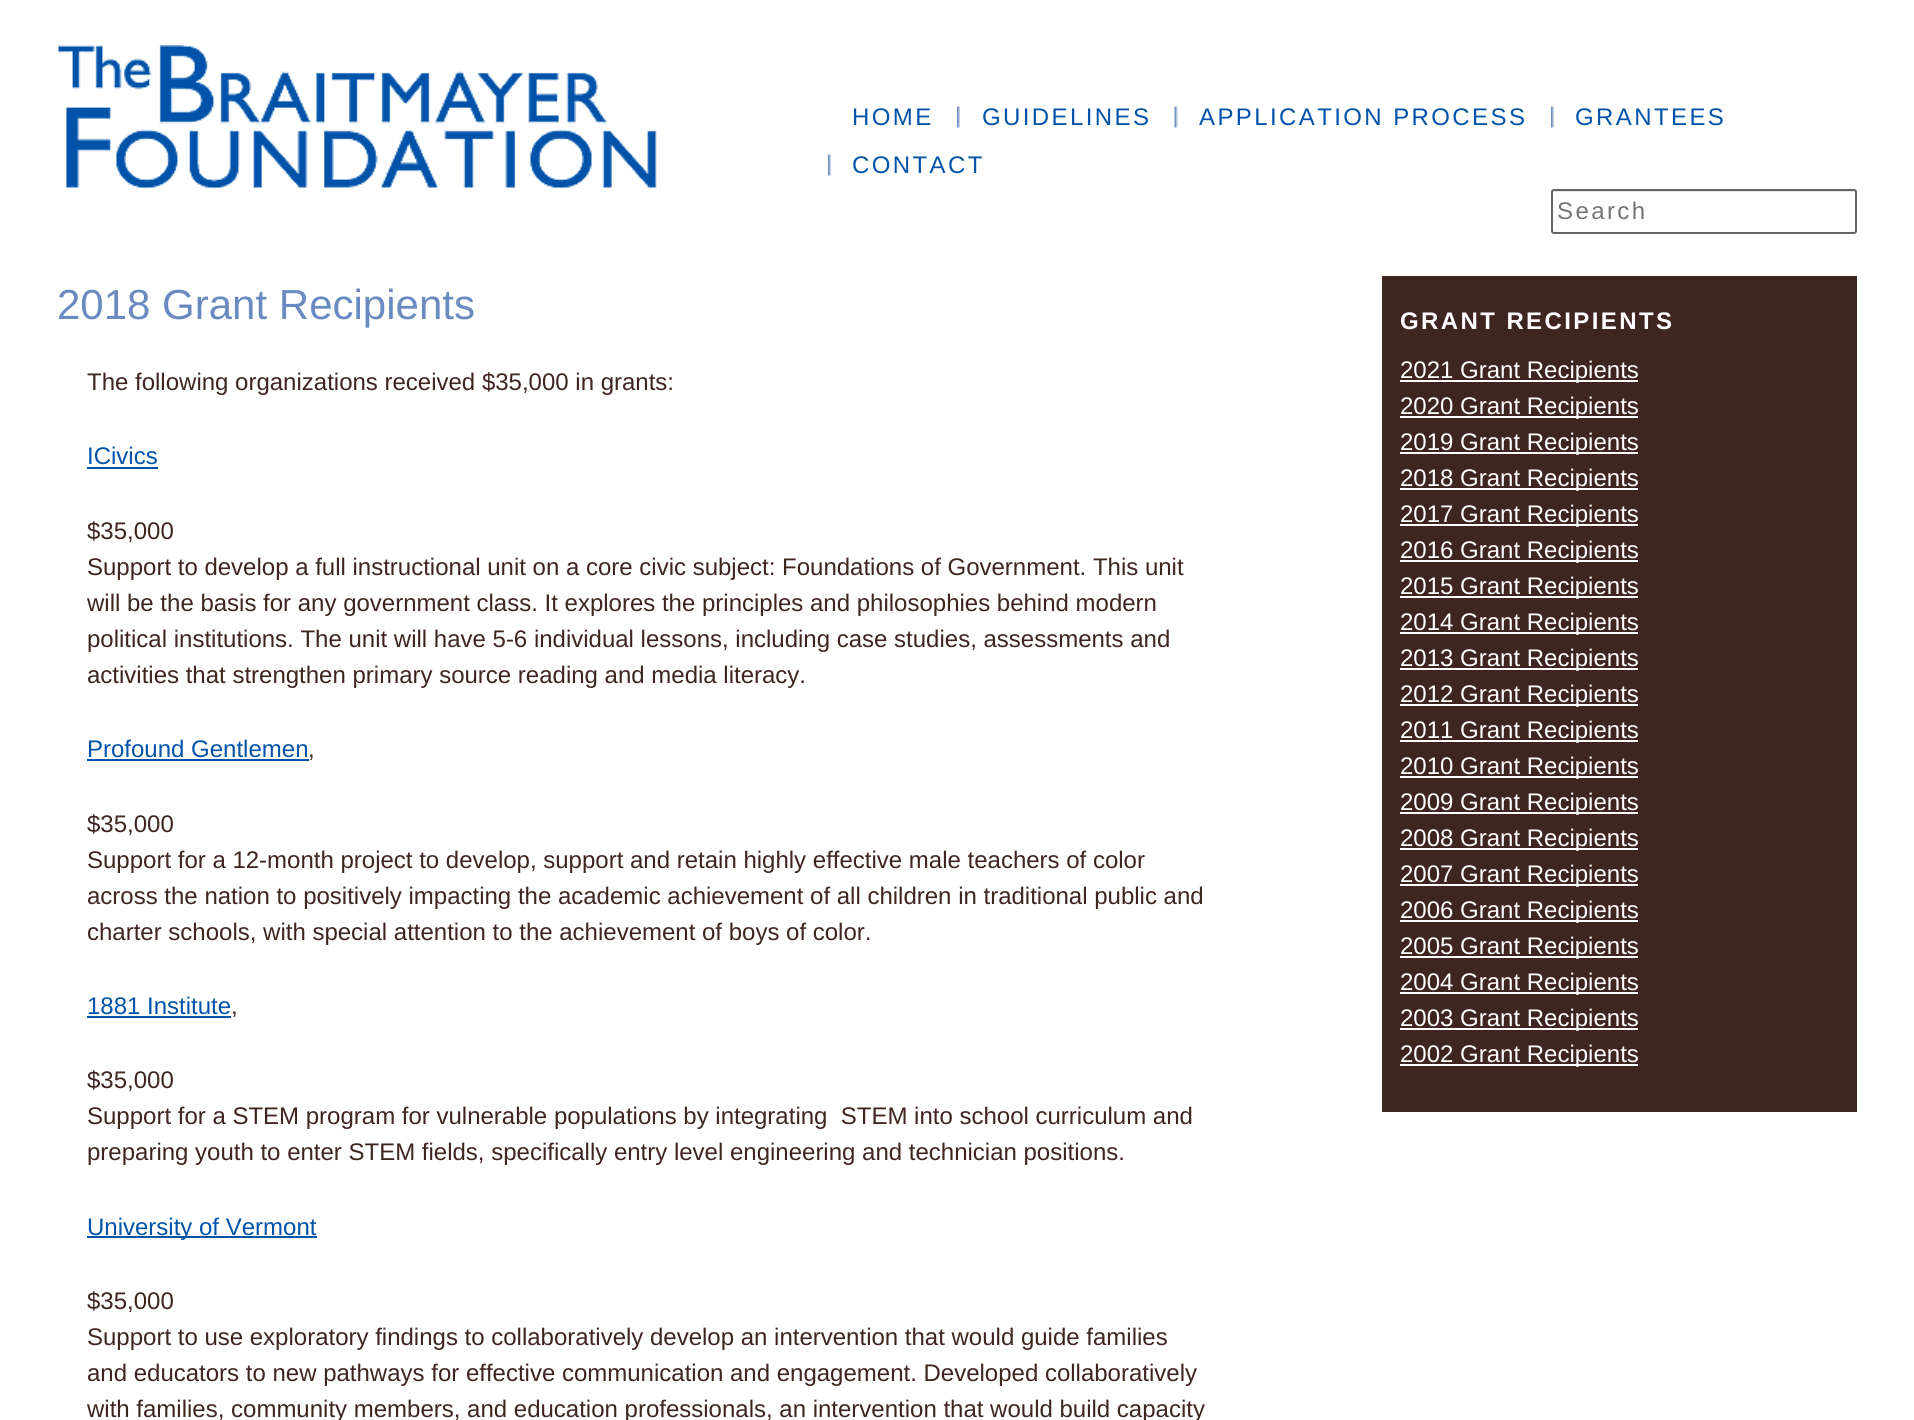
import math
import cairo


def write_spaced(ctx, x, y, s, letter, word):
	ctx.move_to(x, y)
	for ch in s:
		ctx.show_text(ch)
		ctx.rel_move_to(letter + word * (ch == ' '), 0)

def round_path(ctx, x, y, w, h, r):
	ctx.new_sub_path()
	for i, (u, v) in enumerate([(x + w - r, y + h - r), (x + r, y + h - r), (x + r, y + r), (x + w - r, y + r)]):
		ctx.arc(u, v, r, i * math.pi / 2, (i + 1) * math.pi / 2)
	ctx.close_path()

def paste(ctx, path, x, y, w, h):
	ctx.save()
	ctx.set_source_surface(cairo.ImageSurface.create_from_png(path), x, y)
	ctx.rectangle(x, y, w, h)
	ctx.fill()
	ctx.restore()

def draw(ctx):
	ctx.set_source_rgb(1, 1, 1)
	ctx.paint()
	paste(ctx, 'media/1.png', 58, 45, 599, 144)
	ctx.select_font_face('Liberation Sans')
	ctx.set_font_size(24)
	ctx.set_source_rgb(0.004, 0.325, 0.667)
	write_spaced(ctx, 852, 125, 'HOME', 2.4, 0)
	paste(ctx, 'media/2.png', 957, 106, 3, 22)
	write_spaced(ctx, 982, 125, 'GUIDELINES', 2.4, 0)
	paste(ctx, 'media/3.png', 1174, 106, 4, 22)
	write_spaced(ctx, 1199, 125, 'APPLICATION PROCESS', 2.4, 0)
	paste(ctx, 'media/2.png', 1551, 106, 3, 22)
	write_spaced(ctx, 1575, 125, 'GRANTEES', 2.4, 0)
	paste(ctx, 'media/2.png', 828, 154, 3, 22)
	write_spaced(ctx, 852, 173, 'CONTACT', 2.4, 0)
	ctx.set_source_rgb(0.902, 0.902, 0.902)
	ctx.new_path()
	ctx.move_to(1554, 192)
	ctx.line_to(1854, 192)
	ctx.curve_to(1855, 192, 1856, 193, 1856, 194)
	ctx.line_to(1856, 192)
	ctx.curve_to(1856, 192, 1855, 191, 1854, 191)
	ctx.line_to(1554, 191)
	ctx.curve_to(1554, 191, 1553, 192, 1553, 192)
	ctx.close_path()
	ctx.fill()
	round_path(ctx, 1552, 190, 304, 43, 2)
	ctx.set_source_rgb(0.4, 0.4, 0.4)
	ctx.stroke()
	ctx.set_source_rgb(0.459, 0.459, 0.459)
	write_spaced(ctx, 1557, 219, 'Search', 2.4, 0)
	ctx.set_font_size(42)
	ctx.set_source_rgb(0.412, 0.545, 0.749)
	ctx.move_to(57, 319)
	ctx.show_text('2018 Grant Recipients')
	ctx.set_font_size(24)
	ctx.set_source_rgb(0.247, 0.145, 0.125)
	ctx.move_to(87, 390)
	ctx.show_text('The following organizations received $35,000 in grants:')
	ctx.set_source_rgb(0.004, 0.325, 0.667)
	ctx.move_to(87, 464)
	ctx.show_text('ICivics')
	ctx.rectangle(87, 467, 71, 2)
	ctx.fill()
	ctx.set_source_rgb(0.247, 0.145, 0.125)
	for x, y, s in [
		(87, 539, '$35,000'),
		(87, 575, 'Support to develop a full instructional unit on a core civic subject: Foundations of Government. This unit'),
		(87, 611, 'will be the basis for any government class. It explores the principles and philosophies behind modern'),
		(87, 647, 'political institutions. The unit will have 5-6 individual lessons, including case studies, assessments and'),
		(87, 683, 'activities that strengthen primary source reading and media literacy.'),
	]:
		ctx.move_to(x, y)
		ctx.show_text(s)
	ctx.set_source_rgb(0.004, 0.325, 0.667)
	ctx.move_to(87, 757)
	ctx.show_text('Profound Gentlemen')
	ctx.rectangle(87, 759, 222, 2)
	ctx.fill()
	ctx.set_source_rgb(0.247, 0.145, 0.125)
	for x, y, s in [
		(308, 757, ','),
		(87, 832, '$35,000'),
		(87, 868, 'Support for a 12-month project to develop, support and retain highly effective male teachers of color'),
		(87, 904, 'across the nation to positively impacting the academic achievement of all children in traditional public and'),
		(87, 940, 'charter schools, with special attention to the achievement of boys of color.'),
	]:
		ctx.move_to(x, y)
		ctx.show_text(s)
	ctx.set_source_rgb(0.004, 0.325, 0.667)
	ctx.move_to(87, 1014)
	ctx.show_text('1881 Institute')
	ctx.rectangle(87, 1016, 144, 2)
	ctx.fill()
	ctx.set_source_rgb(0.247, 0.145, 0.125)
	for x, y, s in [
		(231, 1014, ','),
		(87, 1088, '$35,000'),
		(87, 1124, 'Support for a STEM program for vulnerable populations by integrating  STEM into school curriculum and'),
		(87, 1160, 'preparing youth to enter STEM fields, specifically entry level engineering and technician positions.'),
	]:
		ctx.move_to(x, y)
		ctx.show_text(s)
	ctx.set_source_rgb(0.004, 0.325, 0.667)
	ctx.rectangle(87, 1236, 230, 2)
	ctx.fill()
	ctx.move_to(87, 1235)
	ctx.show_text('University of Vermont')
	ctx.set_source_rgb(0.247, 0.145, 0.125)
	for x, y, s in [
		(87, 1309, '$35,000'),
		(87, 1345, 'Support to use exploratory findings to collaboratively develop an intervention that would guide families'),
		(87, 1381, 'and educators to new pathways for effective communication and engagement. Developed collaboratively'),
		(87, 1417, 'with families, community members, and education professionals, an intervention that would build capacity'),
	]:
		ctx.move_to(x, y)
		ctx.show_text(s)
	ctx.rectangle(1382, 276, 475, 836)
	ctx.fill()
	ctx.select_font_face('Liberation Sans', cairo.FONT_SLANT_NORMAL, cairo.FONT_WEIGHT_BOLD)
	ctx.set_source_rgb(1, 1, 1)
	write_spaced(ctx, 1400, 329, 'GRANT RECIPIENTS', 2.4, 0)
	ctx.rectangle(1400, 380, 238, 2)
	ctx.fill()
	ctx.select_font_face('Liberation Sans')
	ctx.move_to(1400, 378)
	ctx.show_text('2021 Grant Recipients')
	ctx.rectangle(1400, 416, 238, 2)
	ctx.fill()
	ctx.move_to(1400, 414)
	ctx.show_text('2020 Grant Recipients')
	ctx.rectangle(1400, 452, 238, 2)
	ctx.fill()
	ctx.move_to(1400, 450)
	ctx.show_text('2019 Grant Recipients')
	ctx.rectangle(1400, 488, 238, 2)
	ctx.fill()
	ctx.move_to(1400, 486)
	ctx.show_text('2018 Grant Recipients')
	ctx.rectangle(1400, 524, 238, 2)
	ctx.fill()
	ctx.move_to(1400, 522)
	ctx.show_text('2017 Grant Recipients')
	ctx.rectangle(1400, 560, 238, 2)
	ctx.fill()
	ctx.move_to(1400, 558)
	ctx.show_text('2016 Grant Recipients')
	ctx.rectangle(1400, 596, 238, 2)
	ctx.fill()
	ctx.move_to(1400, 594)
	ctx.show_text('2015 Grant Recipients')
	ctx.rectangle(1400, 632, 238, 2)
	ctx.fill()
	ctx.move_to(1400, 630)
	ctx.show_text('2014 Grant Recipients')
	ctx.rectangle(1400, 668, 238, 2)
	ctx.fill()
	ctx.move_to(1400, 666)
	ctx.show_text('2013 Grant Recipients')
	ctx.rectangle(1400, 704, 238, 2)
	ctx.fill()
	ctx.move_to(1400, 702)
	ctx.show_text('2012 Grant Recipients')
	ctx.rectangle(1400, 740, 238, 2)
	ctx.fill()
	ctx.move_to(1400, 738)
	ctx.show_text('2011 Grant Recipients')
	ctx.rectangle(1400, 776, 238, 2)
	ctx.fill()
	ctx.move_to(1400, 774)
	ctx.show_text('2010 Grant Recipients')
	ctx.rectangle(1400, 812, 238, 2)
	ctx.fill()
	ctx.move_to(1400, 810)
	ctx.show_text('2009 Grant Recipients')
	ctx.rectangle(1400, 848, 238, 2)
	ctx.fill()
	ctx.move_to(1400, 846)
	ctx.show_text('2008 Grant Recipients')
	ctx.rectangle(1400, 884, 238, 2)
	ctx.fill()
	ctx.move_to(1400, 882)
	ctx.show_text('2007 Grant Recipients')
	ctx.rectangle(1400, 920, 238, 2)
	ctx.fill()
	ctx.move_to(1400, 918)
	ctx.show_text('2006 Grant Recipients')
	ctx.rectangle(1400, 956, 238, 2)
	ctx.fill()
	ctx.move_to(1400, 954)
	ctx.show_text('2005 Grant Recipients')
	ctx.rectangle(1400, 992, 238, 2)
	ctx.fill()
	ctx.move_to(1400, 990)
	ctx.show_text('2004 Grant Recipients')
	ctx.rectangle(1400, 1028, 238, 2)
	ctx.fill()
	ctx.move_to(1400, 1026)
	ctx.show_text('2003 Grant Recipients')
	ctx.rectangle(1400, 1064, 238, 2)
	ctx.fill()
	ctx.move_to(1400, 1062)
	ctx.show_text('2002 Grant Recipients')


surface = cairo.ImageSurface(cairo.FORMAT_RGB24, 1914, 1420)
ctx = cairo.Context(surface)
options = cairo.FontOptions()
options.set_hint_metrics(cairo.HINT_METRICS_OFF)
options.set_hint_style(cairo.HINT_STYLE_NONE)
ctx.set_font_options(options)
ctx.set_miter_limit(4)
draw(ctx)
surface.write_to_png('image.png')
